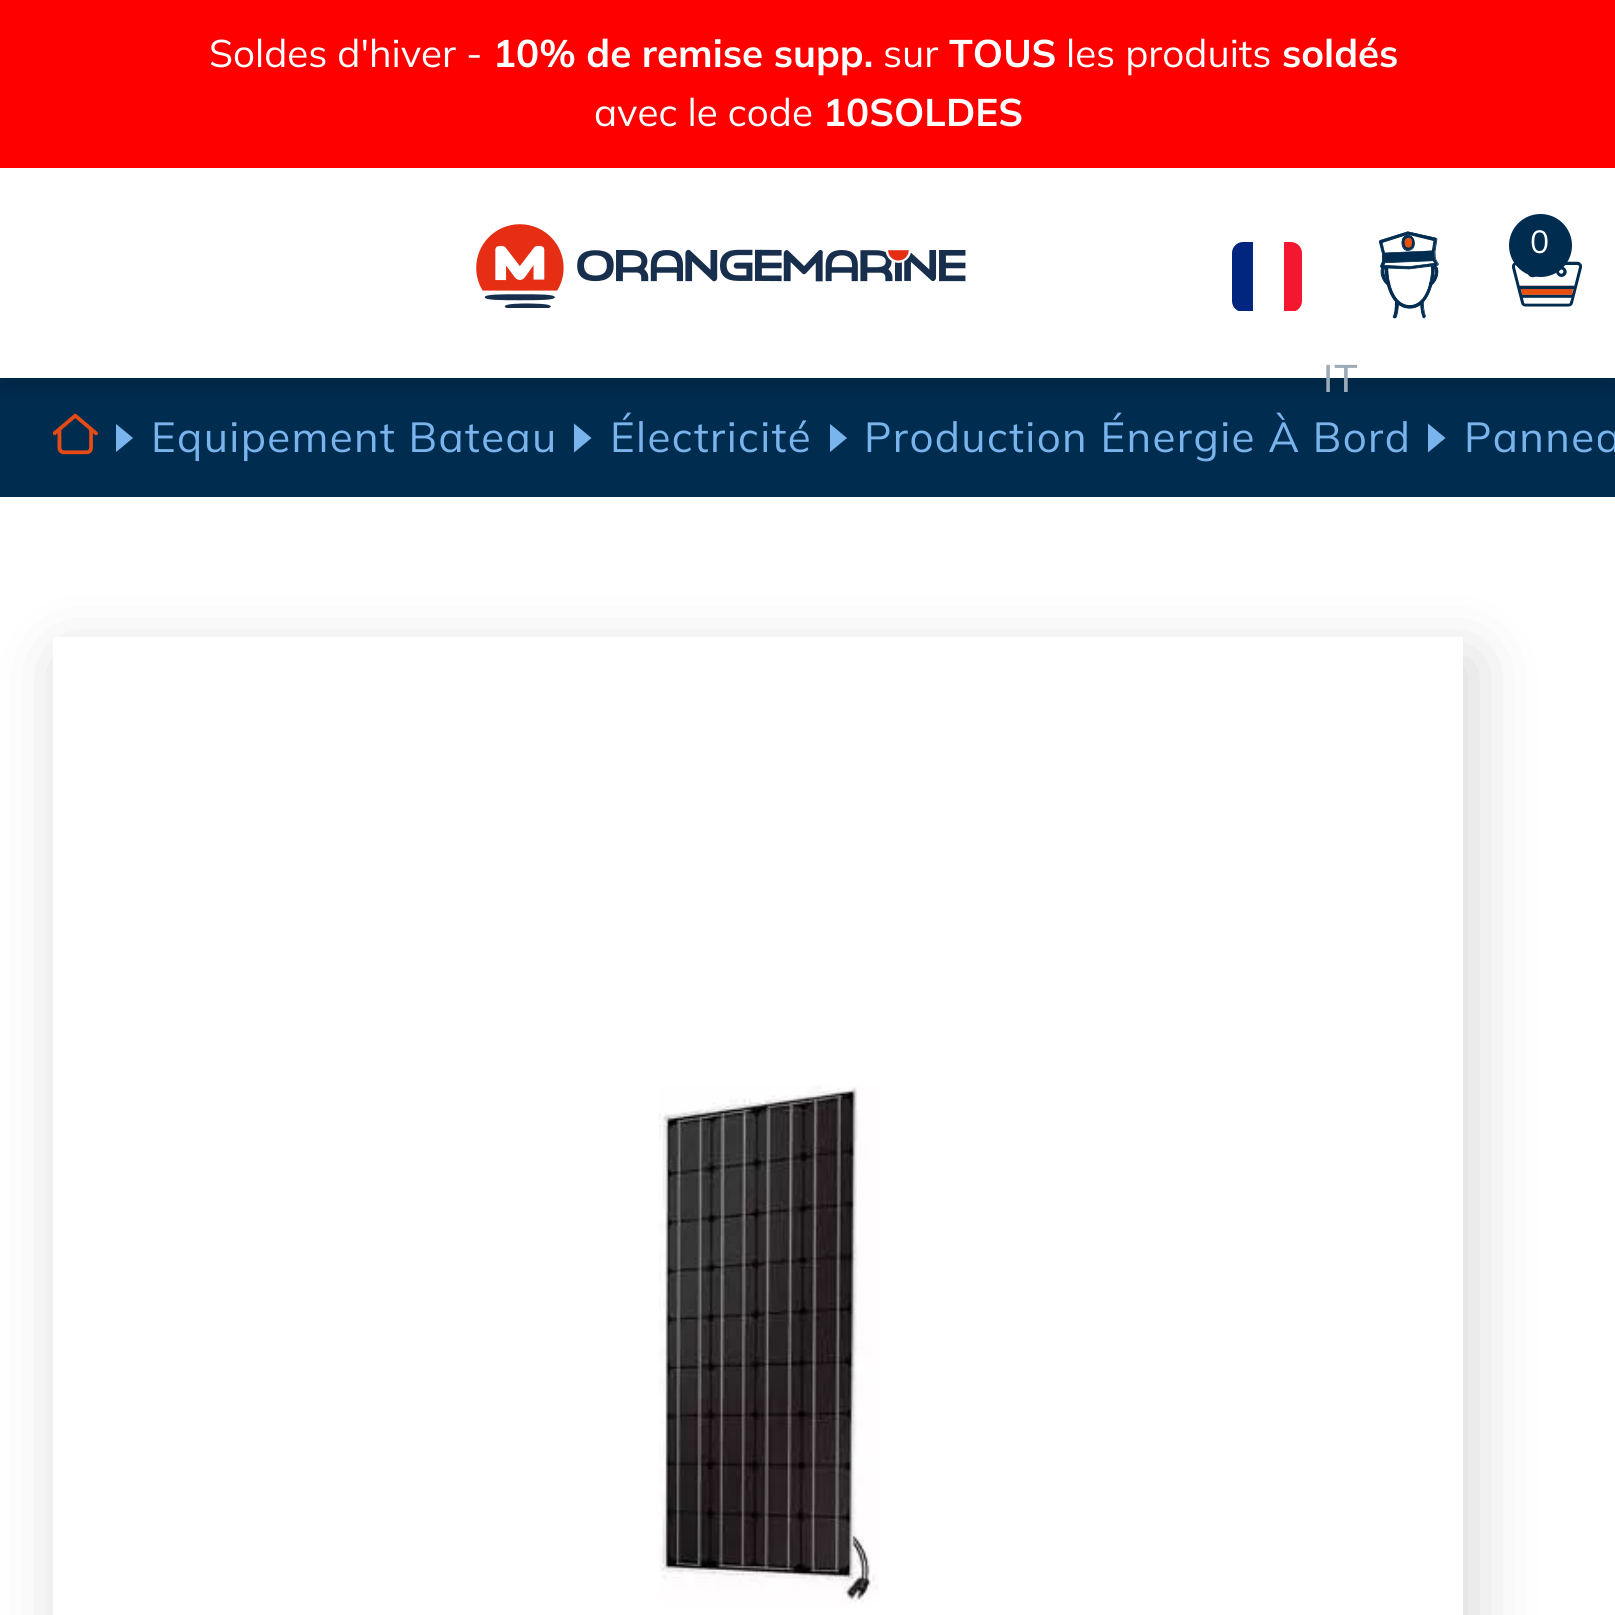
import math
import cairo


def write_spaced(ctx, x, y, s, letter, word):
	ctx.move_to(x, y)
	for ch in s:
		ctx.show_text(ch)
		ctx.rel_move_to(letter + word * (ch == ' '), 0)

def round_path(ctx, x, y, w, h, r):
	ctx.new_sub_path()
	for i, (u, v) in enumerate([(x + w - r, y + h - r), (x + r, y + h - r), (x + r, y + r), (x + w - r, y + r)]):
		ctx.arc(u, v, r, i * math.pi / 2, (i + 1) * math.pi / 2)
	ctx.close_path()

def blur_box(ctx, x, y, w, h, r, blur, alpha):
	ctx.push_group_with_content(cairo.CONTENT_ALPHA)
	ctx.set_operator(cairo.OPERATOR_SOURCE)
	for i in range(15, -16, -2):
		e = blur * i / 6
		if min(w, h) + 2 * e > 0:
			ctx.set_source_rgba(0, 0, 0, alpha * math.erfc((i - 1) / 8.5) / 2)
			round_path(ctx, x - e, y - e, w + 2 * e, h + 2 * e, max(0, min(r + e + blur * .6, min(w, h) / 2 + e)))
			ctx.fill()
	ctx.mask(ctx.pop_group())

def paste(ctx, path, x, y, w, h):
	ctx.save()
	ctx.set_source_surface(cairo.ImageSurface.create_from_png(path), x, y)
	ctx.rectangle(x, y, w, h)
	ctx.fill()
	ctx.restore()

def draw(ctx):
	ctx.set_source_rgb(1, 1, 1)
	ctx.paint()
	ctx.set_source_rgb(0, 0.173, 0.314)
	ctx.rectangle(0, 378, 1615, 119)
	ctx.fill()
	paste(ctx, 'media/4.png', 53, 413, 45, 42)
	ctx.save()
	ctx.rectangle(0, 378, 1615, 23)
	ctx.clip()
	ctx.set_source_rgb(0, 0, 0)
	blur_box(ctx, 0, 11, 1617, 378, 0, 10.5, 0.16)
	ctx.restore()
	ctx.set_source_rgb(1, 0, 0)
	ctx.rectangle(0, 0, 1615, 168)
	ctx.fill()
	ctx.select_font_face('Mulish')
	ctx.set_font_size(38.5)
	ctx.set_source_rgb(1, 1, 1)
	ctx.move_to(209, 67)
	ctx.show_text('Soldes d\'hiver -')
	ctx.select_font_face('Mulish', cairo.FONT_SLANT_NORMAL, cairo.FONT_WEIGHT_BOLD)
	ctx.move_to(493, 67)
	ctx.show_text('10% de remise supp.')
	ctx.select_font_face('Mulish')
	ctx.move_to(883, 67)
	ctx.show_text('sur')
	ctx.select_font_face('Mulish', cairo.FONT_SLANT_NORMAL, cairo.FONT_WEIGHT_BOLD)
	ctx.move_to(949, 67)
	ctx.show_text('TOUS')
	ctx.select_font_face('Mulish')
	ctx.move_to(1066, 67)
	ctx.show_text('les produits')
	ctx.select_font_face('Mulish', cairo.FONT_SLANT_NORMAL, cairo.FONT_WEIGHT_BOLD)
	ctx.move_to(1282, 67)
	ctx.show_text('soldés')
	ctx.select_font_face('Mulish')
	ctx.move_to(594, 126)
	ctx.show_text('avec le code')
	ctx.select_font_face('Mulish', cairo.FONT_SLANT_NORMAL, cairo.FONT_WEIGHT_BOLD)
	ctx.move_to(823, 126)
	ctx.show_text('10SOLDES')
	paste(ctx, 'media/1.png', 476, 224, 490, 84)
	paste(ctx, 'media/2.png', 1379, 231, 60, 88)
	paste(ctx, 'media/3.png', 1512, 261, 70, 46)
	ctx.set_source_rgb(0, 0.173, 0.314)
	ctx.arc(1540.5, 245.5, 31.5, 0, 2 * math.pi)
	ctx.fill()
	ctx.select_font_face('Mulish')
	ctx.set_font_size(32)
	ctx.set_source_rgb(1, 1, 1)
	write_spaced(ctx, 1530, 253, '0', 1, 0)
	ctx.save()
	round_path(ctx, 1232, 242, 70, 70, 11)
	ctx.clip()
	ctx.set_source_rgb(0, 0.149, 0.498)
	ctx.new_path()
	ctx.move_to(1243, 242)
	ctx.line_to(1253, 242)
	ctx.line_to(1253, 311)
	ctx.line_to(1232, 311)
	ctx.line_to(1232, 253)
	ctx.curve_to(1232, 247, 1237, 242, 1243, 242)
	ctx.close_path()
	ctx.fill()
	ctx.set_source_rgb(0.953, 0.094, 0.188)
	ctx.new_path()
	ctx.move_to(1284, 242)
	ctx.line_to(1291, 242)
	ctx.curve_to(1297, 242, 1302, 247, 1302, 253)
	ctx.line_to(1302, 311)
	ctx.line_to(1284, 311)
	ctx.close_path()
	ctx.fill()
	ctx.restore()
	ctx.select_font_face('Mulish Medium')
	ctx.set_font_size(38.5)
	ctx.set_source_rgb(0.612, 0.671, 0.722)
	write_spaced(ctx, 1323, 392, 'IT', 1, 0)
	ctx.save()
	ctx.rectangle(116, 424, 17, 28)
	ctx.clip()
	ctx.set_source_rgb(0.478, 0.706, 0.929)
	ctx.new_path()
	ctx.move_to(133, 438)
	ctx.line_to(115.5, 452.5)
	ctx.line_to(115.5, 423.5)
	ctx.close_path()
	ctx.fill()
	ctx.restore()
	ctx.select_font_face('Mulish')
	ctx.set_font_size(42)
	ctx.set_source_rgb(0.478, 0.706, 0.929)
	write_spaced(ctx, 151, 452, 'Equipement Bateau', 1.4, 0)
	ctx.new_path()
	ctx.move_to(591.5, 438)
	ctx.line_to(574, 452.5)
	ctx.line_to(574, 423.5)
	ctx.close_path()
	ctx.fill()
	write_spaced(ctx, 610, 452, 'Électricité', 1.4, 0)
	ctx.save()
	ctx.rectangle(830, 424, 17, 28)
	ctx.clip()
	ctx.new_path()
	ctx.move_to(847, 438)
	ctx.line_to(829.5, 452.5)
	ctx.line_to(829.5, 423.5)
	ctx.close_path()
	ctx.fill()
	ctx.restore()
	write_spaced(ctx, 864, 452, 'Production Énergie À Bord', 1.4, 0)
	ctx.new_path()
	ctx.move_to(1445.5, 438)
	ctx.line_to(1428, 452.5)
	ctx.line_to(1428, 423.5)
	ctx.close_path()
	ctx.fill()
	write_spaced(ctx, 1464, 452, 'Pannea', 1.4, 0)
	ctx.save()
	ctx.set_fill_rule(cairo.FILL_RULE_EVEN_ODD)
	ctx.new_path()
	ctx.move_to(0, 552)
	ctx.line_to(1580, 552)
	ctx.line_to(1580, 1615)
	ctx.line_to(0, 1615)
	ctx.close_path()
	ctx.move_to(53, 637)
	ctx.line_to(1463, 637)
	ctx.line_to(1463, 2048)
	ctx.line_to(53, 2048)
	ctx.close_path()
	ctx.clip()
	ctx.set_source_rgb(0, 0, 0)
	blur_box(ctx, 63, 658, 1411, 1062, 0, 35, 0.16)
	ctx.restore()
	paste(ctx, 'media/5.png', 659, 1085, 219, 519)


surface = cairo.ImageSurface(cairo.FORMAT_RGB24, 1615, 1615)
ctx = cairo.Context(surface)
options = cairo.FontOptions()
options.set_hint_metrics(cairo.HINT_METRICS_OFF)
options.set_hint_style(cairo.HINT_STYLE_NONE)
ctx.set_font_options(options)
ctx.set_miter_limit(4)
draw(ctx)
surface.write_to_png('image.png')
